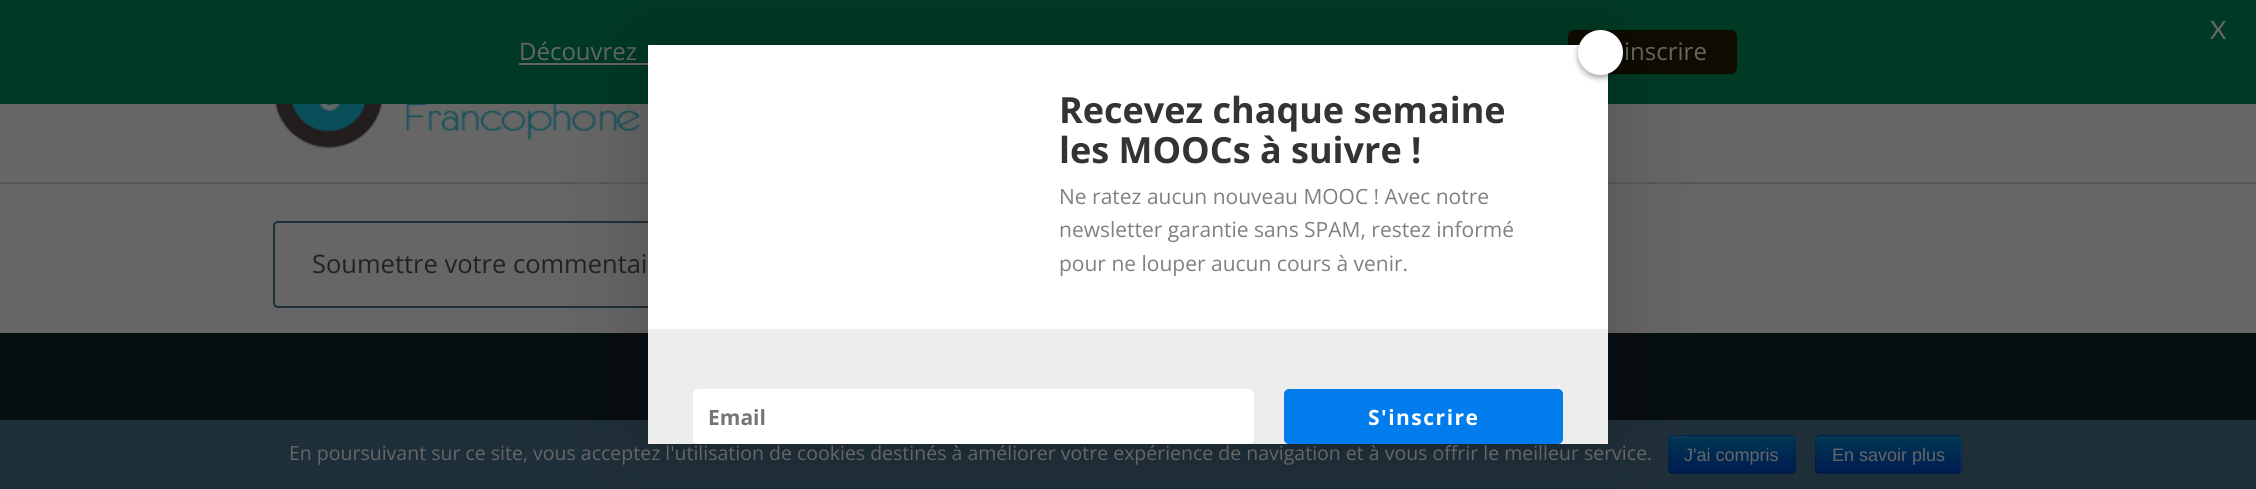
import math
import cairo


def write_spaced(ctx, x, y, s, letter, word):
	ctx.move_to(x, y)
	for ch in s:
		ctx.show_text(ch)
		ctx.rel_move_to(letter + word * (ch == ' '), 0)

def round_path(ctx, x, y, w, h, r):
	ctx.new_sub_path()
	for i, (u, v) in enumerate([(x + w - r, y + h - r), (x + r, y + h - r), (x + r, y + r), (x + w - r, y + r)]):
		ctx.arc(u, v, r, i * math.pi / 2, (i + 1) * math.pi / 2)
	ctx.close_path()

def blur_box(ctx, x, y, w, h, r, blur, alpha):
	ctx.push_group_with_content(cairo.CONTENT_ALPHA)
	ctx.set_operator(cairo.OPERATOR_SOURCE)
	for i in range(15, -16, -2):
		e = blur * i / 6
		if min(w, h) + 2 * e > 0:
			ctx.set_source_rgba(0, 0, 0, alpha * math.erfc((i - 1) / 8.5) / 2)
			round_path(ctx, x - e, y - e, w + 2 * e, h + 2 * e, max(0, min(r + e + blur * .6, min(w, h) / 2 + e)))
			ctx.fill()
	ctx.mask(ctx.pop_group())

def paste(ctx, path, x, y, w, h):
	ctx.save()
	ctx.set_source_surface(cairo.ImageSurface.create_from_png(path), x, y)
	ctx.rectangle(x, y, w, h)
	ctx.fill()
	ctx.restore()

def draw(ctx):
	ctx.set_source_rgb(0.4, 0.4, 0.4)
	ctx.paint()
	ctx.set_source_rgb(0, 0, 0)
	blur_box(ctx, 0, 0, 2256, 183, 0, 1.5, 0.2)
	ctx.set_source_rgb(0.4, 0.4, 0.4)
	ctx.rectangle(0, 104, 2256, 78)
	ctx.fill()
	ctx.set_source_rgb(0.345, 0.345, 0.345)
	ctx.rectangle(0, 182, 2256, 2)
	ctx.fill()
	paste(ctx, 'media/1.png', 274, 104, 366, 45)
	ctx.set_source_rgb(0, 0.227, 0.141)
	ctx.rectangle(0, 0, 2256, 104)
	ctx.fill()
	ctx.select_font_face('Lato')
	ctx.set_font_size(25.5)
	ctx.set_source_rgb(0.4, 0.4, 0.4)
	ctx.move_to(2210, 39)
	ctx.show_text('X')
	ctx.select_font_face('Open Sans')
	ctx.set_font_size(24)
	ctx.move_to(519, 60)
	ctx.show_text('Découvrez')
	ctx.rectangle(519, 63, 129, 2)
	ctx.fill()
	ctx.set_source_rgb(0.055, 0.043, 0)
	round_path(ctx, 1568, 30, 169, 44, 6)
	ctx.fill()
	ctx.set_source_rgb(0.4, 0.4, 0.4)
	ctx.move_to(1624, 60)
	ctx.show_text('inscrire')
	round_path(ctx, 274, 222, 436, 85, 4)
	ctx.set_source_rgb(0.122, 0.184, 0.224)
	ctx.stroke()
	ctx.set_font_size(25.5)
	ctx.set_source_rgb(0.133, 0.133, 0.133)
	ctx.move_to(312, 273)
	ctx.show_text('Soumettre votre commentai')
	ctx.set_source_rgb(0.031, 0.055, 0.071)
	ctx.rectangle(0, 333, 2256, 87)
	ctx.fill()
	ctx.set_source_rgb(0.122, 0.184, 0.224)
	ctx.rectangle(0, 420, 2256, 69)
	ctx.fill()
	ctx.set_source_rgb(0, 0.173, 0.322)
	round_path(ctx, 1668, 435, 128, 39, 5)
	ctx.fill()
	ctx.save()
	round_path(ctx, 1668, 435, 128, 39, 5)
	ctx.clip()
	gradient = cairo.LinearGradient(1732, 437, 1732, 473)
	gradient.add_color_stop_rgba(0, 0, 0.212, 0.322, 1)
	gradient.add_color_stop_rgba(1, 0, 0.106, 0.322, 1)
	ctx.set_source(gradient)
	ctx.rectangle(1668, 437, 128, 36)
	ctx.fill()
	ctx.restore()
	ctx.set_source_rgba(0.4, 0.4, 0.4, 0.2)
	ctx.new_path()
	ctx.move_to(1672, 438)
	ctx.line_to(1791, 438)
	ctx.curve_to(1793, 438, 1794, 439, 1794, 441)
	ctx.curve_to(1794, 439, 1793, 437, 1791, 437)
	ctx.line_to(1693, 437)
	ctx.curve_to(1692, 437, 1670, 432, 1670, 441)
	ctx.curve_to(1670, 439, 1671, 438, 1672, 438)
	ctx.close_path()
	ctx.fill()
	ctx.new_path()
	ctx.move_to(1793.5, 472)
	ctx.line_to(1791.5, 473)
	ctx.line_to(1692, 473)
	ctx.line_to(1672.5, 473)
	ctx.line_to(1670, 472)
	ctx.set_source_rgba(0, 0, 0, 0.25)
	ctx.set_line_width(1.5)
	ctx.stroke()
	ctx.new_path()
	ctx.move_to(1670, 472)
	ctx.curve_to(1667.5, 469.5, 1669, 462, 1669, 459.5)
	ctx.line_to(1669, 444.5)
	ctx.curve_to(1669, 441.5, 1668, 436, 1672.5, 436)
	ctx.line_to(1791, 436)
	ctx.curve_to(1795.5, 436, 1795, 441.5, 1795, 444.5)
	ctx.line_to(1795, 459.5)
	ctx.curve_to(1795, 462, 1796, 469.5, 1793.5, 472)
	ctx.set_source_rgba(0, 0, 0, 0.1)
	ctx.stroke()
	ctx.set_source_rgb(0, 0, 0)
	blur_box(ctx, 648, 45, 960, 399, 0, 45, 0.2)
	ctx.set_source_rgb(1, 1, 1)
	ctx.rectangle(648, 45, 960, 284)
	ctx.fill()
	ctx.set_source_rgb(0, 0, 0)
	blur_box(ctx, 1578, 33, 45, 45, 22.5, 3, 0.34)
	ctx.set_source_rgb(1, 1, 1)
	ctx.arc(1600.5, 52.5, 22.5, 0, 2 * math.pi)
	ctx.fill()
	ctx.select_font_face('Open Sans', cairo.FONT_SLANT_NORMAL, cairo.FONT_WEIGHT_BOLD)
	ctx.set_font_size(36)
	ctx.set_source_rgb(0.2, 0.2, 0.2)
	ctx.move_to(1059, 123)
	ctx.show_text('Recevez chaque semaine')
	ctx.move_to(1059, 163)
	ctx.show_text('les MOOCs à suivre !')
	ctx.select_font_face('Open Sans')
	ctx.set_font_size(21)
	ctx.set_source_rgb(0.502, 0.502, 0.502)
	for x, y, s in [
		(1059, 204, 'Ne ratez aucun nouveau MOOC ! Avec notre'),
		(1059, 237, 'newsletter garantie sans SPAM, restez informé'),
		(1059, 271, 'pour ne louper aucun cours à venir.'),
	]:
		ctx.move_to(x, y)
		ctx.show_text(s)
	ctx.set_source_rgb(0.929, 0.929, 0.929)
	ctx.rectangle(648, 329, 960, 115)
	ctx.fill()
	ctx.set_source_rgb(1, 1, 1)
	round_path(ctx, 693, 389, 561, 55, 5)
	ctx.fill()
	ctx.select_font_face('Open Sans', cairo.FONT_SLANT_NORMAL, cairo.FONT_WEIGHT_BOLD)
	ctx.set_source_rgb(0.459, 0.459, 0.459)
	ctx.move_to(708, 425)
	ctx.show_text('Email')
	ctx.set_source_rgb(0, 0.486, 0.929)
	round_path(ctx, 1284, 389, 279, 55, 5)
	ctx.fill()
	ctx.set_source_rgb(1, 1, 1)
	write_spaced(ctx, 1368, 425, 'S\'inscrire', 1.5, 0)
	ctx.select_font_face('Open Sans')
	ctx.set_font_size(19.5)
	ctx.set_source_rgb(0.4, 0.4, 0.4)
	ctx.move_to(289, 460)
	ctx.show_text('En poursuivant sur ce site, vous acceptez l\'utilisation de cookies destinés à améliorer votre expérience de navigation et à vous offrir le meilleur service.')
	ctx.select_font_face('Liberation Sans')
	ctx.set_font_size(18)
	ctx.move_to(1684, 461)
	ctx.show_text('J\'ai compris')
	ctx.set_source_rgb(0, 0.173, 0.322)
	round_path(ctx, 1815, 435, 147, 39, 5)
	ctx.fill()
	ctx.save()
	round_path(ctx, 1815, 435, 147, 39, 5)
	ctx.clip()
	gradient = cairo.LinearGradient(1889, 437, 1889, 473)
	gradient.add_color_stop_rgba(0, 0, 0.212, 0.322, 1)
	gradient.add_color_stop_rgba(1, 0, 0.106, 0.322, 1)
	ctx.set_source(gradient)
	ctx.rectangle(1815, 437, 147, 36)
	ctx.fill()
	ctx.restore()
	ctx.set_source_rgba(0.4, 0.4, 0.4, 0.2)
	ctx.new_path()
	ctx.move_to(1820, 438)
	ctx.line_to(1958, 438)
	ctx.curve_to(1962, 438, 1960, 450, 1960, 451)
	ctx.line_to(1960, 472)
	ctx.curve_to(1961, 472, 1961, 471, 1961, 470)
	ctx.line_to(1961, 440)
	ctx.curve_to(1961, 438, 1960, 437, 1958, 437)
	ctx.line_to(1820, 437)
	ctx.curve_to(1819, 437, 1818, 438, 1817, 439)
	ctx.close_path()
	ctx.fill()
	ctx.new_path()
	ctx.move_to(1960, 472)
	ctx.curve_to(1959.5, 473, 1958.5, 473, 1957.5, 473)
	ctx.line_to(1819.5, 473)
	ctx.curve_to(1818.5, 473, 1817.5, 473, 1817, 472)
	ctx.set_source_rgba(0, 0, 0, 0.25)
	ctx.stroke()
	ctx.new_path()
	ctx.move_to(1817, 472)
	ctx.curve_to(1814.5, 469.5, 1816, 462, 1816, 459.5)
	ctx.curve_to(1816, 430, 1810.5, 436, 1842.5, 436)
	ctx.line_to(1934.5, 436)
	ctx.curve_to(1966.5, 436, 1961, 430, 1961, 459.5)
	ctx.curve_to(1961, 462, 1962.5, 469.5, 1960, 472)
	ctx.set_source_rgba(0, 0, 0, 0.1)
	ctx.stroke()
	ctx.set_source_rgb(0.4, 0.4, 0.4)
	ctx.move_to(1832, 461)
	ctx.show_text('En savoir plus')


surface = cairo.ImageSurface(cairo.FORMAT_RGB24, 2256, 489)
ctx = cairo.Context(surface)
options = cairo.FontOptions()
options.set_hint_metrics(cairo.HINT_METRICS_OFF)
options.set_hint_style(cairo.HINT_STYLE_NONE)
ctx.set_font_options(options)
ctx.set_miter_limit(4)
draw(ctx)
surface.write_to_png('image.png')
